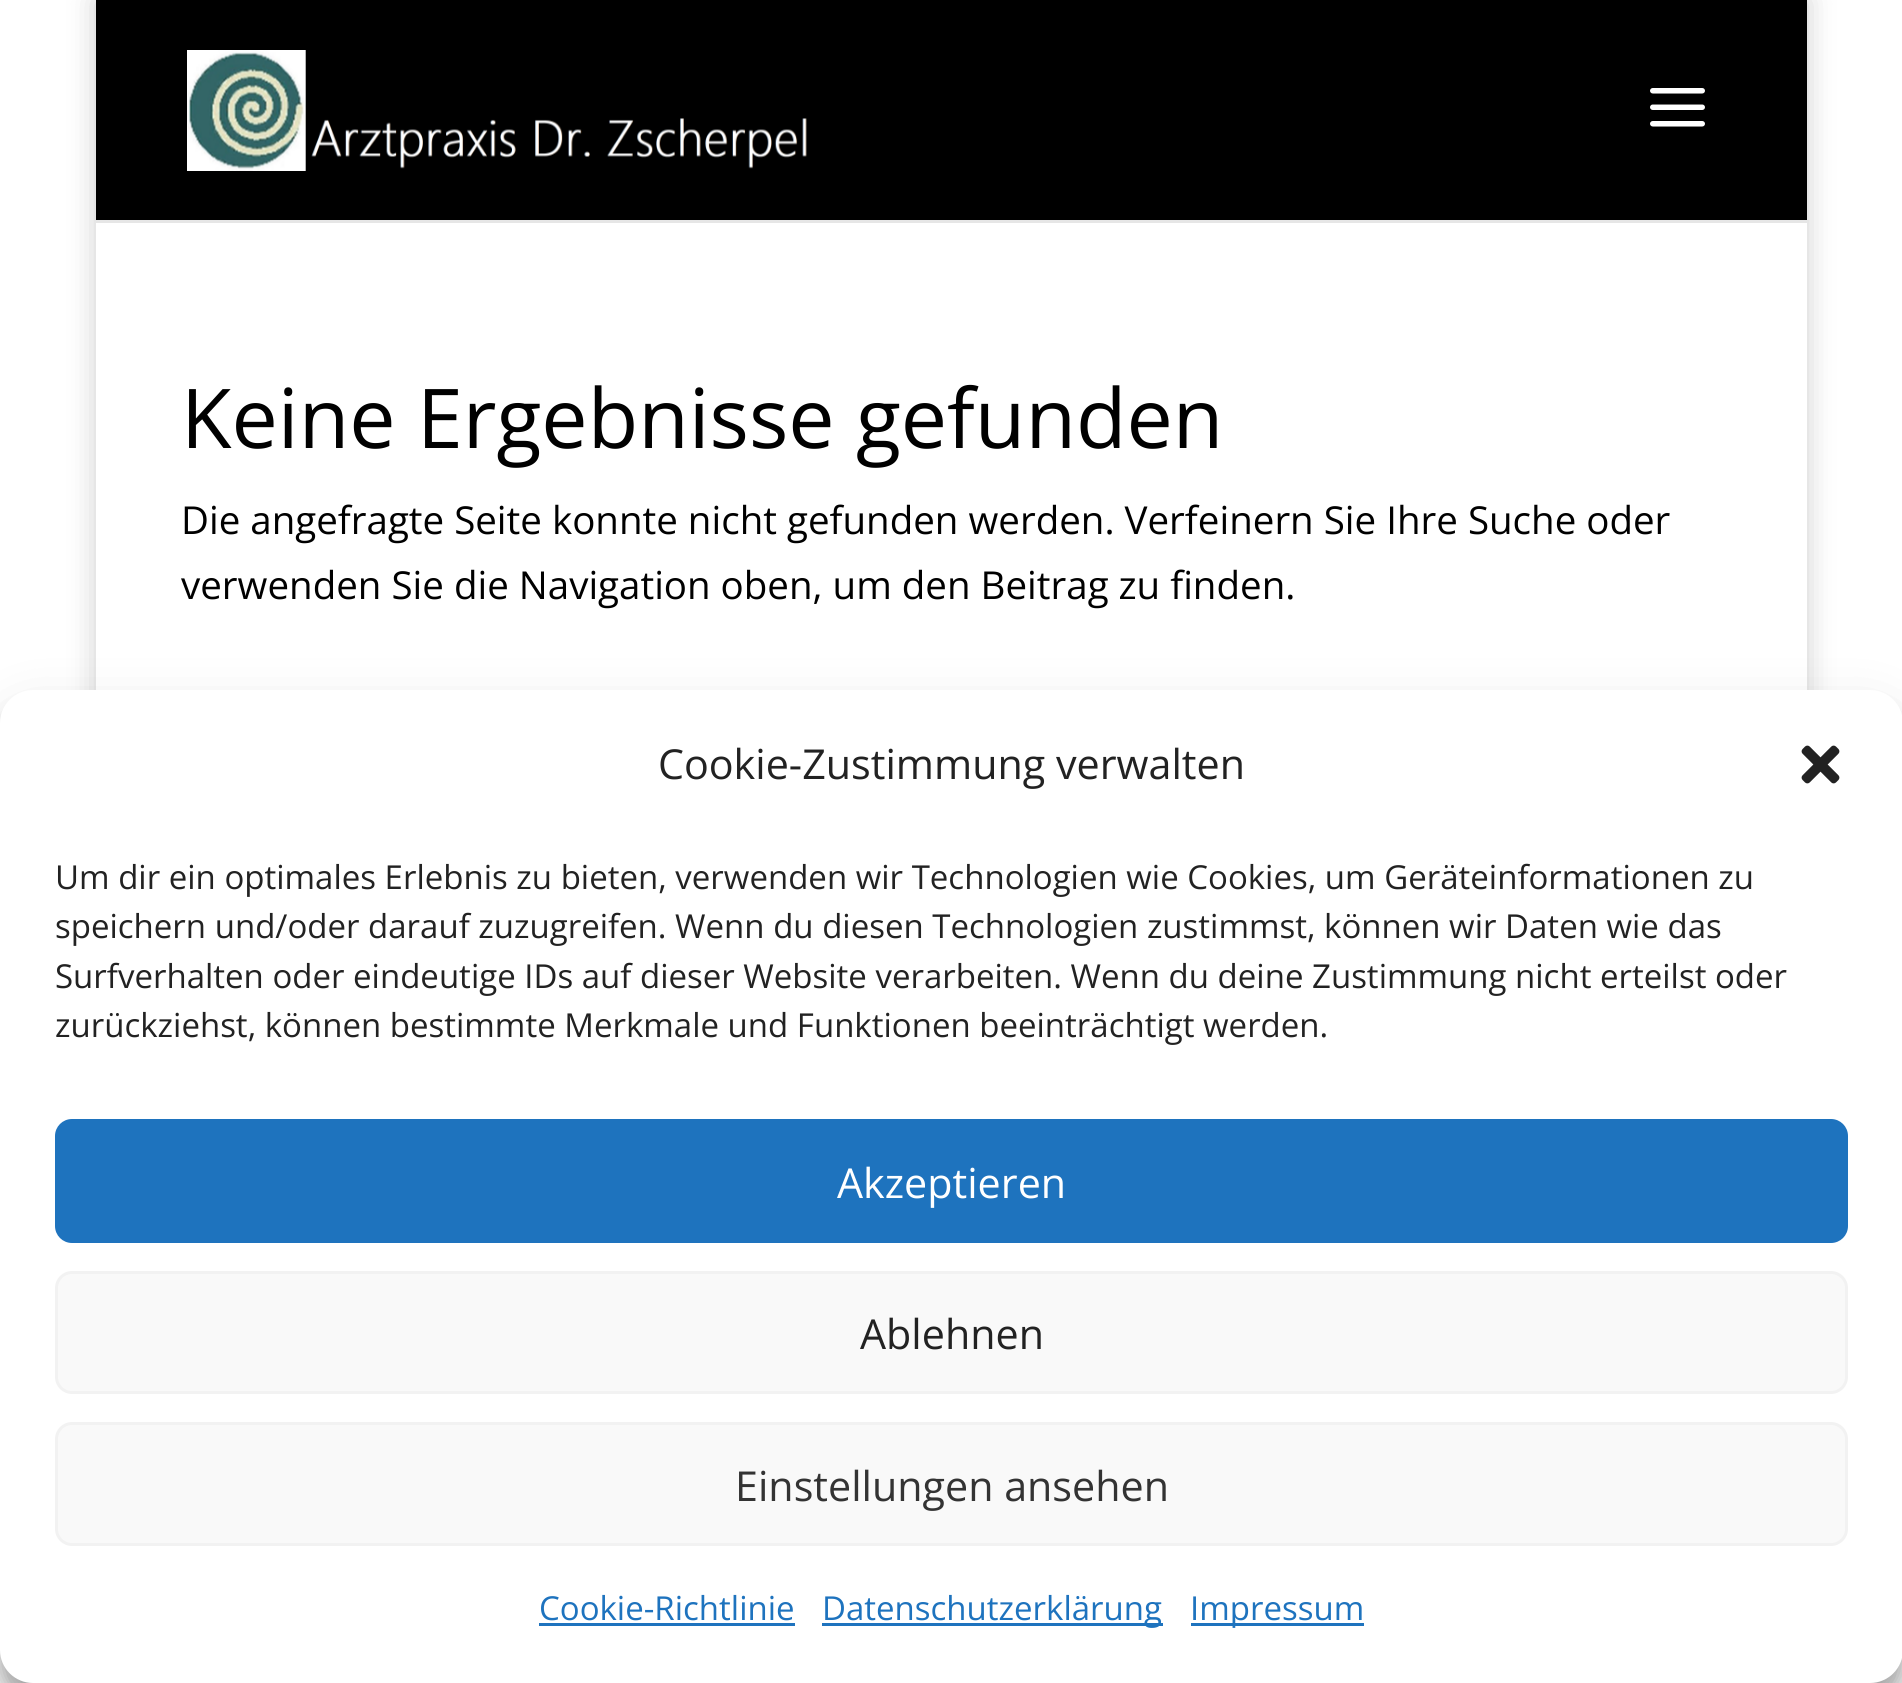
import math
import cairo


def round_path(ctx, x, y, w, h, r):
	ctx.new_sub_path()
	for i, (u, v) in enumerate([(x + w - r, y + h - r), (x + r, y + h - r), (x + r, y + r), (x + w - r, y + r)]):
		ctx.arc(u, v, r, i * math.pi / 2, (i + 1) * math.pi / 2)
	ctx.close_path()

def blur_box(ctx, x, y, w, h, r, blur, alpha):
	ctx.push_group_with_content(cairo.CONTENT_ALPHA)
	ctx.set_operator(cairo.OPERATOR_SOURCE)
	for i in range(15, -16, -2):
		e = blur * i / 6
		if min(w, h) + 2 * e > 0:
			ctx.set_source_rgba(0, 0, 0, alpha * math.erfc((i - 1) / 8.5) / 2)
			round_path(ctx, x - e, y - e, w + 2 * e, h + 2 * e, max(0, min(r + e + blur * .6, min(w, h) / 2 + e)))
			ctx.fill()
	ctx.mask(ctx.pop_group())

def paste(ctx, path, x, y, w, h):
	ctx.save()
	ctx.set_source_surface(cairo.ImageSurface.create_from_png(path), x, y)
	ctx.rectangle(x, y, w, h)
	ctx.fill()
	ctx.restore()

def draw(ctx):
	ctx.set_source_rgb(1, 1, 1)
	ctx.paint()
	ctx.set_source_rgb(0, 0, 0)
	blur_box(ctx, 96, 0, 1711, 1172, 0, 14, 0.2)
	ctx.set_source_rgb(0.902, 0.902, 0.902)
	ctx.new_path()
	ctx.move_to(96, 3)
	ctx.line_to(96, 223)
	ctx.line_to(1807, 223)
	ctx.line_to(1807, 3)
	ctx.line_to(1807, 220)
	ctx.line_to(96, 220)
	ctx.close_path()
	ctx.fill()
	ctx.set_source_rgb(0, 0, 0)
	ctx.rectangle(96, 0, 1711, 220)
	ctx.fill()
	paste(ctx, 'media/1.png', 187, 50, 620, 121)
	paste(ctx, 'media/2.png', 1650, 88, 55, 39)
	ctx.set_source_rgb(1, 1, 1)
	ctx.rectangle(96, 223, 1711, 467)
	ctx.fill()
	ctx.select_font_face('Open Sans')
	ctx.set_font_size(82.5)
	ctx.set_source_rgb(0, 0, 0)
	ctx.move_to(181, 448)
	ctx.show_text('Keine Ergebnisse gefunden')
	ctx.set_font_size(38.5)
	ctx.move_to(181, 534)
	ctx.show_text('Die angefragte Seite konnte nicht gefunden werden. Verfeinern Sie Ihre Suche oder')
	ctx.move_to(181, 599)
	ctx.show_text('verwenden Sie die Navigation oben, um den Beitrag zu finden.')
	ctx.set_source_rgb(0, 0, 0)
	blur_box(ctx, 0, 707, 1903, 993, 33, 8, 0.23)
	blur_box(ctx, 0, 718, 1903, 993, 33, 27.5, 0.19)
	ctx.set_source_rgb(1, 1, 1)
	round_path(ctx, 0, 690, 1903, 993, 33)
	ctx.fill()
	ctx.set_font_size(41.25)
	ctx.set_source_rgb(0.133, 0.133, 0.133)
	ctx.move_to(658, 779)
	ctx.show_text('Cookie-Zustimmung verwalten')
	paste(ctx, 'media/3.png', 1801, 745, 39, 39)
	ctx.set_font_size(33)
	for x, y, s in [
		(55, 889, 'Um dir ein optimales Erlebnis zu bieten, verwenden wir Technologien wie Cookies, um Geräteinformationen zu'),
		(55, 938, 'speichern und/oder darauf zuzugreifen. Wenn du diesen Technologien zustimmst, können wir Daten wie das'),
		(55, 988, 'Surfverhalten oder eindeutige IDs auf dieser Website verarbeiten. Wenn du deine Zustimmung nicht erteilst oder'),
		(55, 1037, 'zurückziehst, können bestimmte Merkmale und Funktionen beeinträchtigt werden.'),
	]:
		ctx.move_to(x, y)
		ctx.show_text(s)
	ctx.set_source_rgb(0.118, 0.451, 0.745)
	round_path(ctx, 56.5, 1120.5, 1790, 121, 15.5)
	ctx.fill_preserve()
	ctx.set_line_width(3)
	ctx.stroke()
	ctx.set_font_size(41.25)
	ctx.set_source_rgb(1, 1, 1)
	ctx.move_to(837, 1198)
	ctx.show_text('Akzeptieren')
	ctx.set_source_rgb(0.976, 0.976, 0.976)
	round_path(ctx, 56.5, 1272.5, 1790, 120, 15.5)
	ctx.fill_preserve()
	ctx.set_source_rgb(0.949, 0.949, 0.949)
	ctx.stroke()
	ctx.set_source_rgb(0.133, 0.133, 0.133)
	ctx.move_to(860, 1349)
	ctx.show_text('Ablehnen')
	ctx.set_source_rgb(0.976, 0.976, 0.976)
	round_path(ctx, 56.5, 1423.5, 1790, 121, 15.5)
	ctx.fill_preserve()
	ctx.set_source_rgb(0.949, 0.949, 0.949)
	ctx.stroke()
	ctx.set_source_rgb(0.2, 0.2, 0.2)
	ctx.move_to(735, 1501)
	ctx.show_text('Einstellungen ansehen')
	ctx.set_font_size(33)
	ctx.set_source_rgb(0.118, 0.451, 0.745)
	ctx.move_to(539, 1620)
	ctx.show_text('Cookie-Richtlinie')
	ctx.rectangle(539, 1623, 256, 3)
	ctx.fill()
	ctx.rectangle(822, 1623, 341, 3)
	ctx.fill()
	ctx.move_to(822, 1620)
	ctx.show_text('Datenschutzerklärung')
	ctx.rectangle(1191, 1623, 173, 3)
	ctx.fill()
	ctx.move_to(1190, 1620)
	ctx.show_text('Impressum')


surface = cairo.ImageSurface(cairo.FORMAT_RGB24, 1902, 1683)
ctx = cairo.Context(surface)
options = cairo.FontOptions()
options.set_hint_metrics(cairo.HINT_METRICS_OFF)
options.set_hint_style(cairo.HINT_STYLE_NONE)
ctx.set_font_options(options)
ctx.set_miter_limit(4)
draw(ctx)
surface.write_to_png('image.png')
